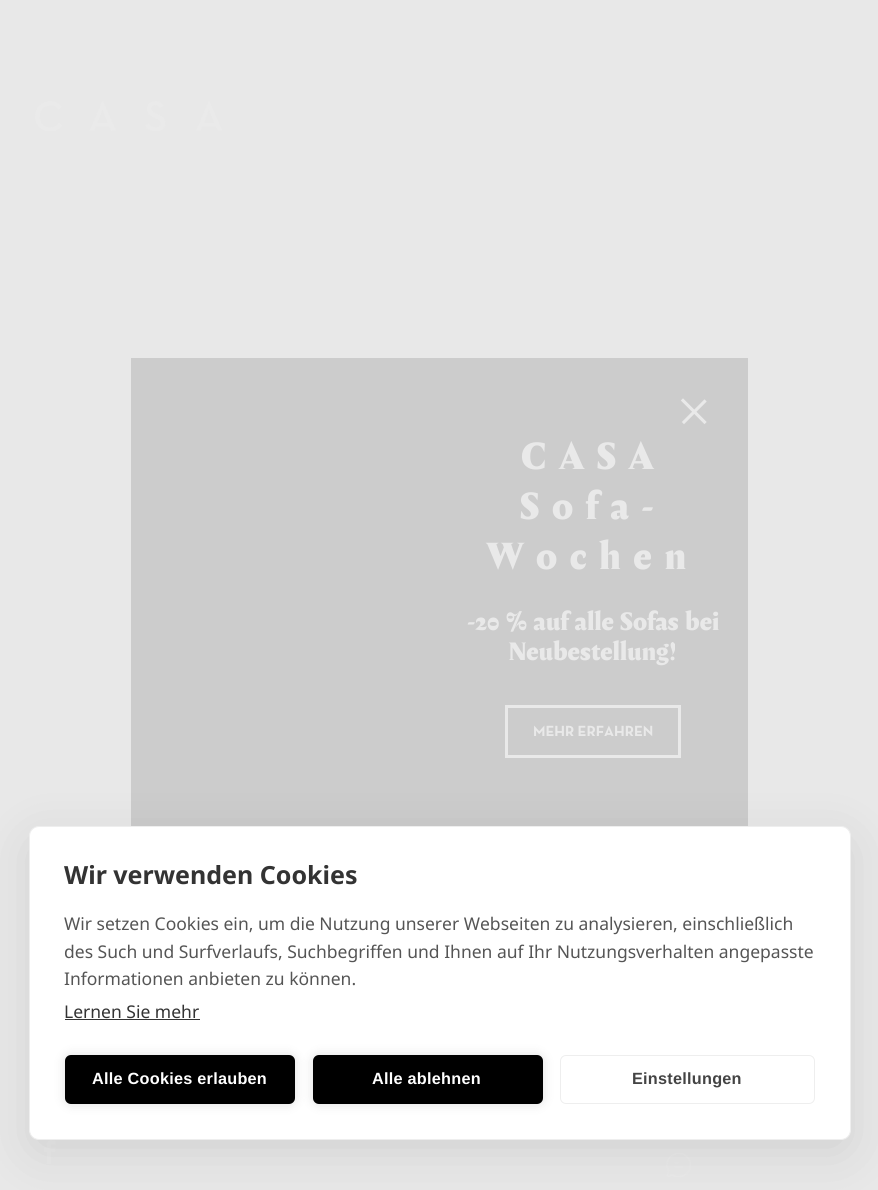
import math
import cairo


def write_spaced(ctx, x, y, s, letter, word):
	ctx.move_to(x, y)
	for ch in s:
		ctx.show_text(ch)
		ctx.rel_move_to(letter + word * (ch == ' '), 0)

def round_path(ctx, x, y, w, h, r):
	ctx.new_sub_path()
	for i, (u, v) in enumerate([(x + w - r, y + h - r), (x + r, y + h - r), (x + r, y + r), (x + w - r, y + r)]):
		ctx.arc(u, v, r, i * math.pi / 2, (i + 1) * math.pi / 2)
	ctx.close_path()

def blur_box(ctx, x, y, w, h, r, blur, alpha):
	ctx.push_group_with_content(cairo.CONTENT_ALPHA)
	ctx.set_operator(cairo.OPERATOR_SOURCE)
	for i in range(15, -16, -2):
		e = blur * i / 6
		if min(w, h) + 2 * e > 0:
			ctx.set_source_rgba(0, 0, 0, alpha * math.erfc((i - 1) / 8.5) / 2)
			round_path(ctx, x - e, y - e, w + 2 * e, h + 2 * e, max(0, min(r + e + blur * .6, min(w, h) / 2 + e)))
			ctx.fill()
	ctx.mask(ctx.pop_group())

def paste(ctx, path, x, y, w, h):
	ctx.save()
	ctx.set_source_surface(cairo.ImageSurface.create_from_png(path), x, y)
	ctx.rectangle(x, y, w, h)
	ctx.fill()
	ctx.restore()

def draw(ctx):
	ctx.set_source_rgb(0.91, 0.91, 0.91)
	ctx.paint()
	paste(ctx, 'media/1.png', 36, 33, 23, 22)
	paste(ctx, 'media/2.png', 35, 101, 188, 30)
	paste(ctx, 'media/3.png', 44, 1140, 12, 24)
	ctx.set_source_rgb(0.8, 0.8, 0.8)
	ctx.rectangle(131, 358, 617, 468)
	ctx.fill()
	ctx.new_path()
	ctx.move_to(684, 422)
	ctx.line_to(704.5, 401.5)
	ctx.move_to(704.5, 422)
	ctx.line_to(683, 400.5)
	ctx.set_source_rgb(0.914, 0.914, 0.914)
	ctx.set_line_width(3.1)
	ctx.set_line_cap(cairo.LINE_CAP_SQUARE)
	ctx.stroke()
	ctx.select_font_face('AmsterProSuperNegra')
	ctx.set_font_size(37.5)
	for x, y, s in [
		(521, 469, 'CASA'),
		(520, 519, 'Sofa-'),
		(487, 569, 'Wochen'),
	]:
		write_spaced(ctx, x, y, s, 12.5, 0)
	ctx.set_font_size(25)
	ctx.move_to(467, 630)
	ctx.show_text('-20 % auf alle Sofas bei')
	ctx.move_to(509, 660)
	ctx.show_text('Neubestellung!')
	ctx.rectangle(506.5, 706.5, 173, 50)
	ctx.set_line_width(3)
	ctx.set_line_cap(cairo.LINE_CAP_BUTT)
	ctx.stroke()
	ctx.select_font_face('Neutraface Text', cairo.FONT_SLANT_NORMAL, cairo.FONT_WEIGHT_BOLD)
	ctx.set_font_size(15)
	ctx.move_to(533, 736)
	ctx.show_text('MEHR ERFAHREN')
	paste(ctx, 'media/4.png', 666, 1153, 25, 25)
	ctx.set_source_rgb(0, 0, 0)
	blur_box(ctx, 29, 839, 822, 314, 10, 25, 0.1)
	ctx.set_source_rgb(1, 1, 1)
	round_path(ctx, 29.5, 826.5, 821, 313, 9.5)
	ctx.fill_preserve()
	ctx.set_source_rgb(0.933, 0.933, 0.933)
	ctx.set_line_width(1)
	ctx.stroke()
	ctx.select_font_face('Noto Sans', cairo.FONT_SLANT_NORMAL, cairo.FONT_WEIGHT_BOLD)
	ctx.set_font_size(25)
	ctx.set_source_rgb(0.2, 0.2, 0.2)
	ctx.move_to(64, 884)
	ctx.show_text('Wir verwenden Cookies')
	ctx.select_font_face('Noto Sans')
	ctx.set_font_size(17.5)
	ctx.set_source_rgb(0.333, 0.333, 0.333)
	for x, y, s in [
		(64, 930, 'Wir setzen Cookies ein, um die Nutzung unserer Webseiten zu analysieren, einschließlich'),
		(64, 958, 'des Such und Surfverlaufs, Suchbegriffen und Ihnen auf Ihr Nutzungsverhalten angepasste'),
		(64, 985, 'Informationen anbieten zu können.'),
	]:
		ctx.move_to(x, y)
		ctx.show_text(s)
	ctx.set_source_rgb(0.2, 0.2, 0.2)
	ctx.move_to(64, 1018)
	ctx.show_text('Lernen Sie mehr')
	ctx.rectangle(65, 1019, 135, 1)
	ctx.fill()
	ctx.set_source_rgb(0, 0, 0)
	blur_box(ctx, 65, 1055, 230, 49, 6, 6, 0.12)
	ctx.set_source_rgb(0, 0, 0)
	round_path(ctx, 65, 1055, 230, 49, 6)
	ctx.fill()
	ctx.select_font_face('Liberation Sans', cairo.FONT_SLANT_NORMAL, cairo.FONT_WEIGHT_BOLD)
	ctx.set_font_size(16.25)
	ctx.set_source_rgb(1, 1, 1)
	write_spaced(ctx, 92, 1084, 'Alle Cookies erlauben', 0.25, 0)
	ctx.set_source_rgb(0, 0, 0)
	blur_box(ctx, 313, 1055, 230, 49, 6, 6, 0.12)
	ctx.set_source_rgb(0, 0, 0)
	round_path(ctx, 313, 1055, 230, 49, 6)
	ctx.fill()
	ctx.set_source_rgb(1, 1, 1)
	write_spaced(ctx, 372, 1084, 'Alle ablehnen', 0.25, 0)
	round_path(ctx, 560.5, 1055.5, 254, 48, 5.5)
	ctx.set_source_rgb(0.933, 0.933, 0.933)
	ctx.stroke()
	ctx.set_source_rgb(0.267, 0.267, 0.267)
	write_spaced(ctx, 632, 1084, 'Einstellungen', 0.25, 0)


surface = cairo.ImageSurface(cairo.FORMAT_RGB24, 878, 1190)
ctx = cairo.Context(surface)
options = cairo.FontOptions()
options.set_hint_metrics(cairo.HINT_METRICS_OFF)
options.set_hint_style(cairo.HINT_STYLE_NONE)
ctx.set_font_options(options)
ctx.set_miter_limit(4)
draw(ctx)
surface.write_to_png('image.png')
